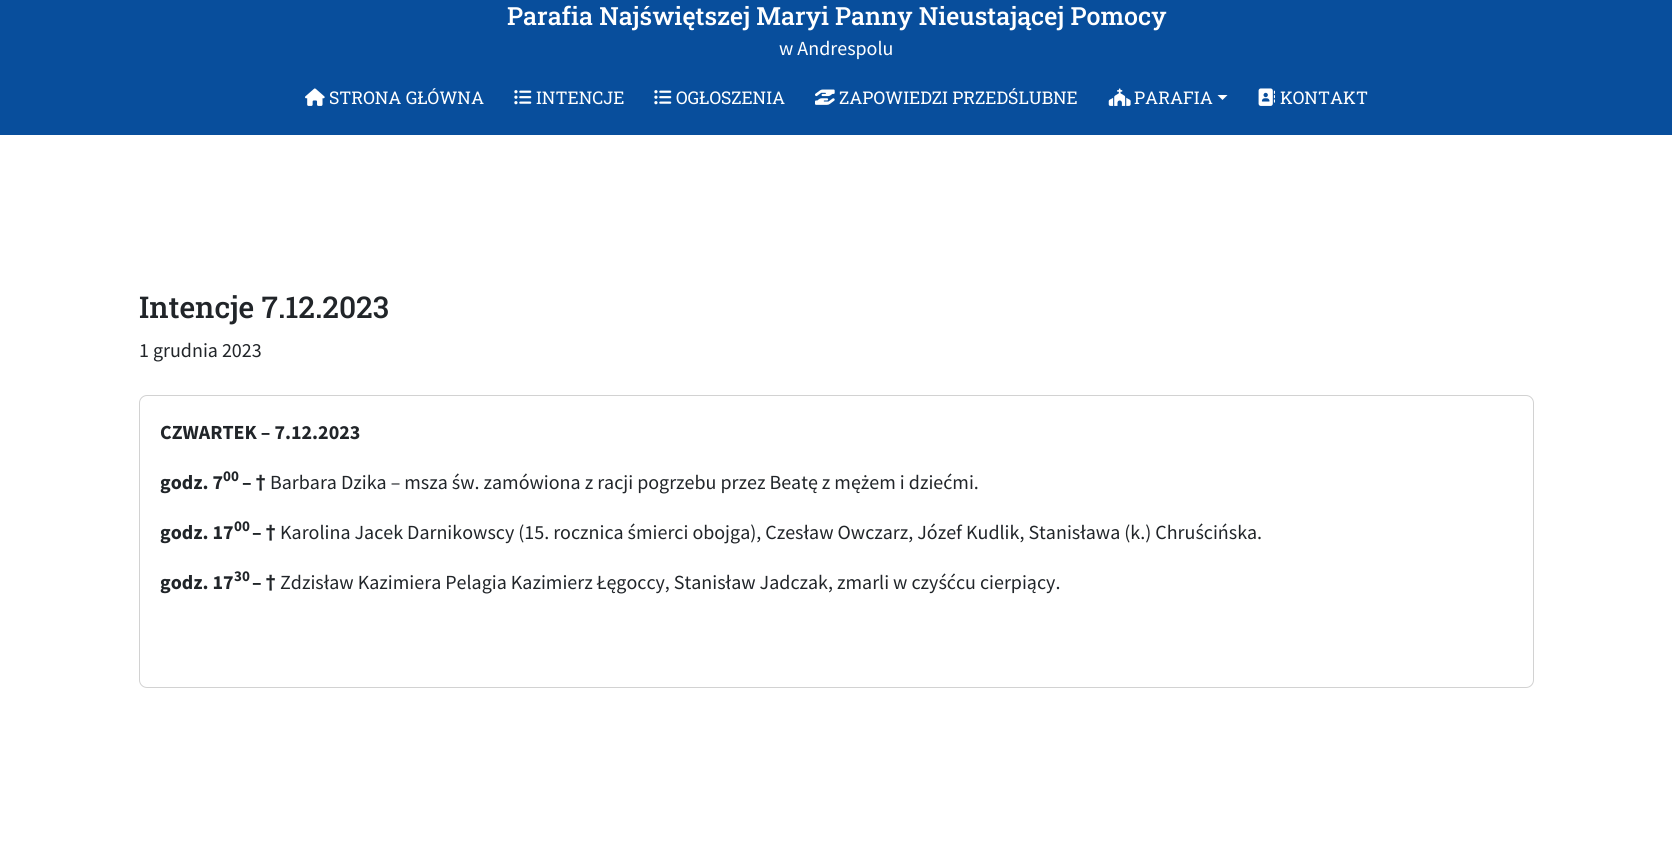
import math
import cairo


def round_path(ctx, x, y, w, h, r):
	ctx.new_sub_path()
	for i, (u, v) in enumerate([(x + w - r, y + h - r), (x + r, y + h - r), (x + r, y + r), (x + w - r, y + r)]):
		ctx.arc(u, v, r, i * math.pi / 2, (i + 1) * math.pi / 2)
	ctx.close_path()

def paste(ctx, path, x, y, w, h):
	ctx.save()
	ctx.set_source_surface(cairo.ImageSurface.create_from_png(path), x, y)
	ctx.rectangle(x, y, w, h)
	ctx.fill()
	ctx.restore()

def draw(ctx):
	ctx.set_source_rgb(1, 1, 1)
	ctx.paint()
	ctx.set_source_rgb(0.035, 0.306, 0.612)
	ctx.rectangle(0, 0, 1672, 135)
	ctx.fill()
	ctx.select_font_face('Roboto Slab Medium')
	ctx.set_font_size(25)
	ctx.set_source_rgb(1, 1, 1)
	ctx.move_to(507, 25)
	ctx.show_text('Parafia Najświętszej Maryi Panny Nieustającej Pomocy')
	ctx.select_font_face('Source Sans Pro')
	ctx.set_font_size(20)
	ctx.move_to(779, 55)
	ctx.show_text('w Andrespolu')
	paste(ctx, 'media/1.png', 305, 88, 20, 18)
	ctx.select_font_face('Roboto Slab')
	ctx.set_font_size(17.5)
	ctx.move_to(329, 104)
	ctx.show_text('STRONA GŁÓWNA')
	paste(ctx, 'media/2.png', 514, 90, 18, 15)
	ctx.move_to(536, 104)
	ctx.show_text('INTENCJE')
	paste(ctx, 'media/2.png', 654, 90, 18, 15)
	ctx.move_to(676, 104)
	ctx.show_text('OGŁOSZENIA')
	paste(ctx, 'media/3.png', 815, 89, 20, 16)
	ctx.move_to(839, 104)
	ctx.show_text('ZAPOWIEDZI PRZEDŚLUBNE')
	paste(ctx, 'media/4.png', 1108, 88, 23, 18)
	ctx.move_to(1134, 104)
	ctx.show_text('PARAFIA')
	ctx.new_path()
	ctx.move_to(1217.5, 95)
	ctx.line_to(1227.5, 95)
	ctx.line_to(1222.5, 100)
	ctx.close_path()
	ctx.fill()
	paste(ctx, 'media/5.png', 1258, 88, 17, 18)
	ctx.move_to(1280, 104)
	ctx.show_text('KONTAKT')
	ctx.select_font_face('Roboto Slab Medium')
	ctx.set_font_size(30)
	ctx.set_source_rgb(0.129, 0.145, 0.161)
	ctx.move_to(139, 318)
	ctx.show_text('Intencje 7.12.2023')
	ctx.select_font_face('Source Sans Pro')
	ctx.set_font_size(20)
	ctx.move_to(139, 357)
	ctx.show_text('1 grudnia 2023')
	round_path(ctx, 139.5, 395.5, 1394, 292, 7.5)
	ctx.set_source_rgb(0.824, 0.824, 0.824)
	ctx.set_line_width(1)
	ctx.stroke()
	ctx.select_font_face('Source Sans Pro', cairo.FONT_SLANT_NORMAL, cairo.FONT_WEIGHT_BOLD)
	ctx.set_source_rgb(0.129, 0.145, 0.161)
	ctx.move_to(160, 439)
	ctx.show_text('CZWARTEK – 7.12.2023')
	ctx.move_to(160, 489)
	ctx.show_text('godz. 7')
	ctx.set_font_size(15)
	ctx.move_to(223, 481)
	ctx.show_text('00')
	ctx.set_font_size(20)
	ctx.move_to(242, 489)
	ctx.show_text('– †')
	ctx.select_font_face('Source Sans Pro')
	ctx.move_to(270, 489)
	ctx.show_text('Barbara Dzika – msza św. zamówiona z racji pogrzebu przez Beatę z mężem i dziećmi.')
	ctx.select_font_face('Source Sans Pro', cairo.FONT_SLANT_NORMAL, cairo.FONT_WEIGHT_BOLD)
	ctx.move_to(160, 539)
	ctx.show_text('godz. 17')
	ctx.set_font_size(15)
	ctx.move_to(234, 531)
	ctx.show_text('00')
	ctx.set_font_size(20)
	ctx.move_to(252, 539)
	ctx.show_text('– †')
	ctx.select_font_face('Source Sans Pro')
	ctx.move_to(280, 539)
	ctx.show_text('Karolina Jacek Darnikowscy (15. rocznica śmierci obojga), Czesław Owczarz, Józef Kudlik, Stanisława (k.) Chruścińska.')
	ctx.select_font_face('Source Sans Pro', cairo.FONT_SLANT_NORMAL, cairo.FONT_WEIGHT_BOLD)
	ctx.move_to(160, 589)
	ctx.show_text('godz. 17')
	ctx.set_font_size(15)
	ctx.move_to(234, 581)
	ctx.show_text('30')
	ctx.set_font_size(20)
	ctx.move_to(252, 589)
	ctx.show_text('– †')
	ctx.select_font_face('Source Sans Pro')
	ctx.move_to(280, 589)
	ctx.show_text('Zdzisław Kazimiera Pelagia Kazimierz Łęgoccy, Stanisław Jadczak, zmarli w czyśćcu cierpiący.')


surface = cairo.ImageSurface(cairo.FORMAT_RGB24, 1672, 844)
ctx = cairo.Context(surface)
options = cairo.FontOptions()
options.set_hint_metrics(cairo.HINT_METRICS_OFF)
options.set_hint_style(cairo.HINT_STYLE_NONE)
ctx.set_font_options(options)
ctx.set_miter_limit(4)
draw(ctx)
surface.write_to_png('image.png')
